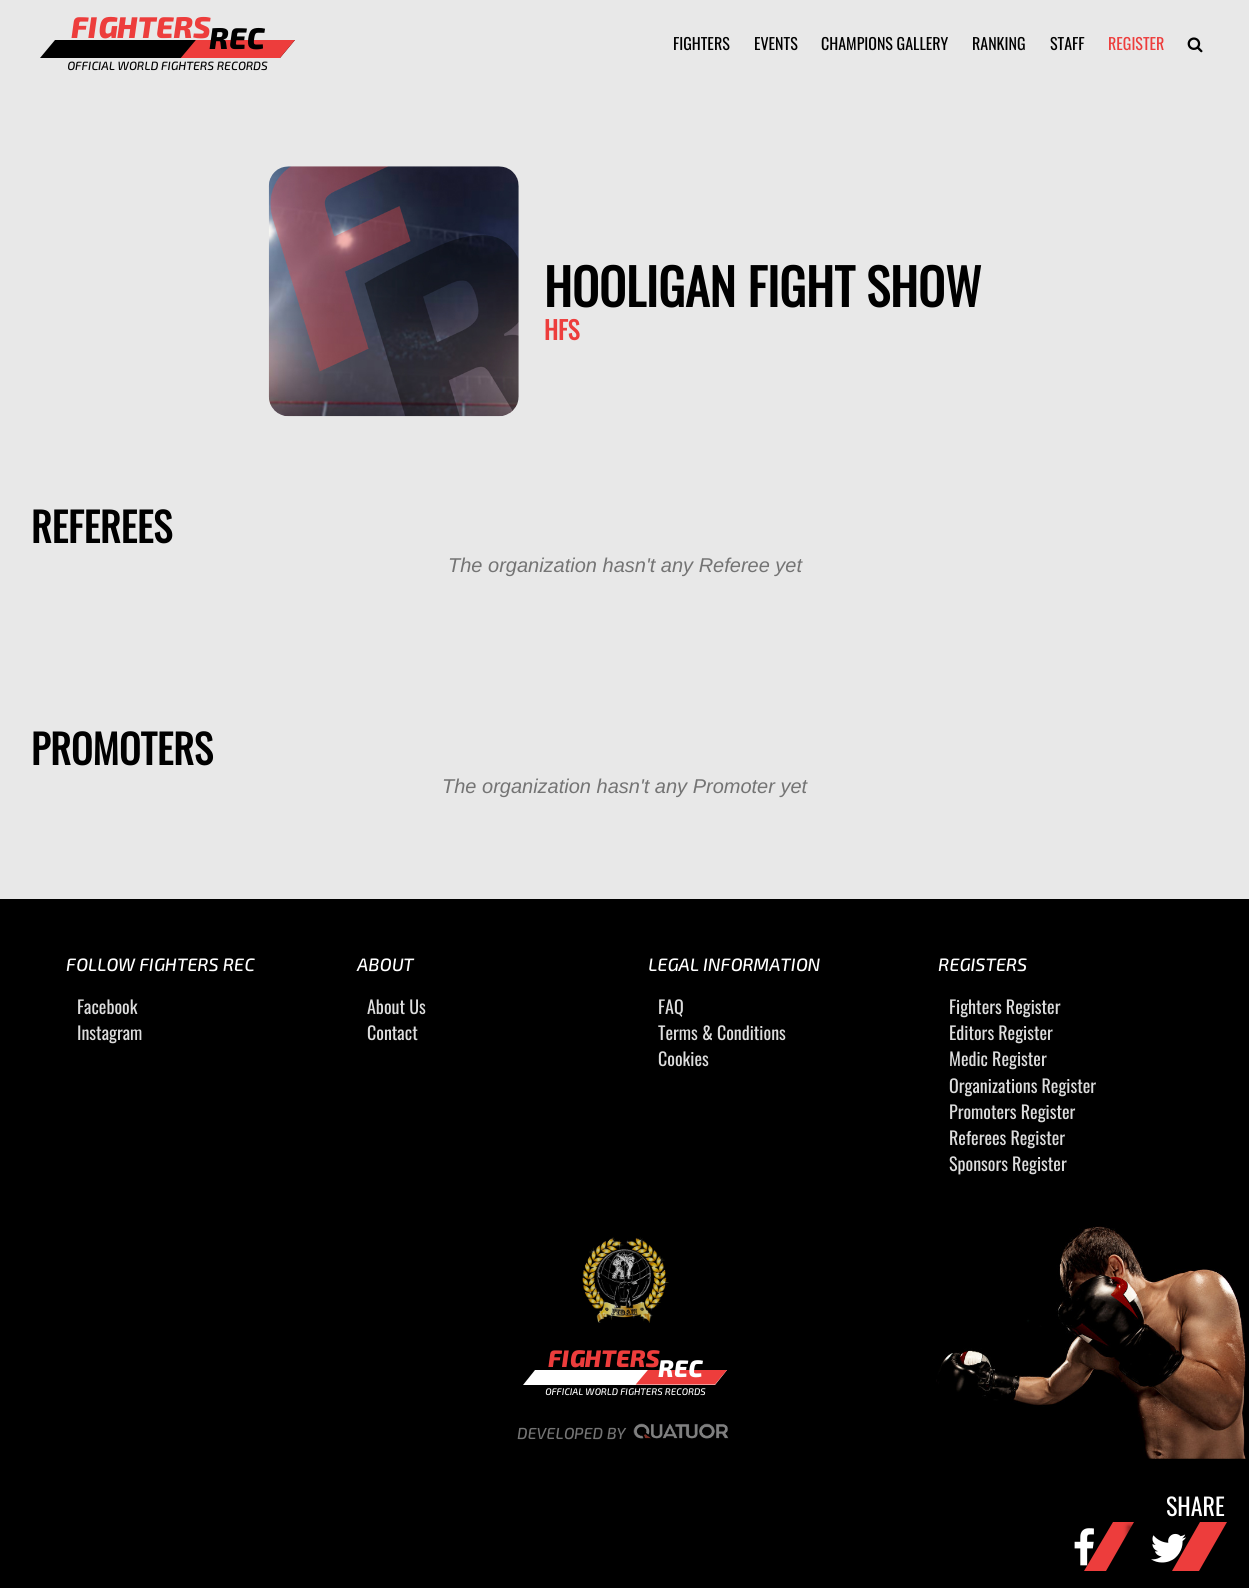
import math
import cairo


def round_path(ctx, x, y, w, h, r):
	ctx.new_sub_path()
	for i, (u, v) in enumerate([(x + w - r, y + h - r), (x + r, y + h - r), (x + r, y + r), (x + w - r, y + r)]):
		ctx.arc(u, v, r, i * math.pi / 2, (i + 1) * math.pi / 2)
	ctx.close_path()

def blur_box(ctx, x, y, w, h, r, blur, alpha):
	ctx.push_group_with_content(cairo.CONTENT_ALPHA)
	ctx.set_operator(cairo.OPERATOR_SOURCE)
	for i in range(15, -16, -2):
		e = blur * i / 6
		if min(w, h) + 2 * e > 0:
			ctx.set_source_rgba(0, 0, 0, alpha * math.erfc((i - 1) / 8.5) / 2)
			round_path(ctx, x - e, y - e, w + 2 * e, h + 2 * e, max(0, min(r + e + blur * .6, min(w, h) / 2 + e)))
			ctx.fill()
	ctx.mask(ctx.pop_group())

def paste(ctx, path, x, y, w, h):
	ctx.save()
	ctx.set_source_surface(cairo.ImageSurface.create_from_png(path), x, y)
	ctx.rectangle(x, y, w, h)
	ctx.fill()
	ctx.restore()

def draw(ctx):
	ctx.set_source_rgb(0, 0, 0)
	ctx.paint()
	ctx.set_source_rgb(0.91, 0.91, 0.91)
	ctx.rectangle(0, 0, 1249, 899)
	ctx.fill()
	ctx.select_font_face('Exo 2 ExtraBold', cairo.FONT_SLANT_ITALIC)
	ctx.set_font_size(30)
	ctx.set_source_rgb(0.929, 0.239, 0.235)
	ctx.move_to(71, 38)
	ctx.show_text('FIGHTERS')
	ctx.set_source_rgb(0, 0, 0)
	ctx.new_path()
	ctx.move_to(55, 40)
	ctx.line_to(295, 40)
	ctx.line_to(280, 58)
	ctx.line_to(40, 58)
	ctx.close_path()
	ctx.fill()
	ctx.save()
	ctx.new_path()
	ctx.move_to(55, 40)
	ctx.line_to(295, 40)
	ctx.line_to(280, 58)
	ctx.line_to(40, 58)
	ctx.close_path()
	ctx.clip()
	ctx.new_path()
	ctx.move_to(317.5, -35)
	ctx.line_to(647, -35)
	ctx.line_to(496, 145)
	ctx.line_to(166.5, 145)
	ctx.close_path()
	ctx.set_source_rgb(0.929, 0.239, 0.235)
	ctx.set_line_width(90)
	ctx.stroke()
	ctx.restore()
	ctx.move_to(209, 49)
	ctx.show_text('REC')
	ctx.select_font_face('Exo 2 Medium', cairo.FONT_SLANT_ITALIC)
	ctx.set_font_size(12)
	ctx.move_to(67, 70)
	ctx.show_text('OFFICIAL WORLD FIGHTERS RECORDS')
	ctx.select_font_face('Oswald')
	ctx.set_font_size(16)
	for x, y, s in [
		(673, 50, 'FIGHTERS'),
		(754, 50, 'EVENTS'),
		(821, 50, 'CHAMPIONS GALLERY'),
		(972, 50, 'RANKING'),
		(1050, 50, 'STAFF'),
	]:
		ctx.move_to(x, y)
		ctx.show_text(s)
	ctx.set_source_rgb(0.929, 0.239, 0.235)
	ctx.move_to(1108, 50)
	ctx.show_text('REGISTER')
	paste(ctx, 'media/1.png', 1187, 37, 16, 16)
	paste(ctx, 'media/2.png', 268, 166, 251, 251)
	ctx.select_font_face('Oswald', cairo.FONT_SLANT_NORMAL, cairo.FONT_WEIGHT_BOLD)
	ctx.set_font_size(50)
	ctx.set_source_rgb(0, 0, 0)
	ctx.move_to(544, 307)
	ctx.show_text('HOOLIGAN FIGHT SHOW')
	ctx.set_font_size(25)
	ctx.set_source_rgb(0.929, 0.239, 0.235)
	ctx.move_to(544, 340)
	ctx.show_text('HFS')
	ctx.set_font_size(40)
	ctx.set_source_rgb(0, 0, 0)
	ctx.move_to(31, 543)
	ctx.show_text('REFEREES')
	ctx.select_font_face('Liberation Sans', cairo.FONT_SLANT_ITALIC)
	ctx.set_font_size(20)
	ctx.set_source_rgb(0.455, 0.455, 0.455)
	ctx.move_to(448, 572)
	ctx.show_text('The organization hasn\'t any Referee yet')
	ctx.select_font_face('Oswald', cairo.FONT_SLANT_NORMAL, cairo.FONT_WEIGHT_BOLD)
	ctx.set_font_size(40)
	ctx.set_source_rgb(0, 0, 0)
	ctx.move_to(31, 765)
	ctx.show_text('PROMOTERS')
	ctx.select_font_face('Liberation Sans', cairo.FONT_SLANT_ITALIC)
	ctx.set_font_size(20)
	ctx.set_source_rgb(0.455, 0.455, 0.455)
	ctx.move_to(442, 793)
	ctx.show_text('The organization hasn\'t any Promoter yet')
	paste(ctx, 'media/3.png', 936, 1226, 312, 233)
	ctx.select_font_face('Exo 2 Medium', cairo.FONT_SLANT_ITALIC)
	ctx.set_font_size(18)
	ctx.set_source_rgb(1, 1, 1)
	ctx.move_to(66, 971)
	ctx.show_text('FOLLOW FIGHTERS REC')
	ctx.select_font_face('Oswald')
	ctx.set_source_rgb(0.867, 0.867, 0.867)
	ctx.move_to(77, 1014)
	ctx.show_text('Facebook')
	ctx.move_to(77, 1040)
	ctx.show_text('Instagram')
	ctx.select_font_face('Exo 2 Medium', cairo.FONT_SLANT_ITALIC)
	ctx.set_source_rgb(1, 1, 1)
	ctx.move_to(357, 971)
	ctx.show_text('ABOUT')
	ctx.select_font_face('Oswald')
	ctx.set_source_rgb(0.867, 0.867, 0.867)
	ctx.move_to(367, 1014)
	ctx.show_text('About Us')
	ctx.move_to(367, 1040)
	ctx.show_text('Contact')
	ctx.select_font_face('Exo 2 Medium', cairo.FONT_SLANT_ITALIC)
	ctx.set_source_rgb(1, 1, 1)
	ctx.move_to(648, 971)
	ctx.show_text('LEGAL INFORMATION')
	ctx.select_font_face('Oswald')
	ctx.set_source_rgb(0.867, 0.867, 0.867)
	for x, y, s in [
		(658, 1014, 'FAQ'),
		(658, 1040, 'Terms & Conditions'),
		(658, 1066, 'Cookies'),
	]:
		ctx.move_to(x, y)
		ctx.show_text(s)
	ctx.select_font_face('Exo 2 Medium', cairo.FONT_SLANT_ITALIC)
	ctx.set_source_rgb(1, 1, 1)
	ctx.move_to(938, 971)
	ctx.show_text('REGISTERS')
	ctx.select_font_face('Oswald')
	ctx.set_source_rgb(0.867, 0.867, 0.867)
	for x, y, s in [
		(949, 1014, 'Fighters Register'),
		(949, 1040, 'Editors Register'),
		(949, 1066, 'Medic Register'),
		(949, 1093, 'Organizations Register'),
		(949, 1119, 'Promoters Register'),
		(949, 1145, 'Referees Register'),
		(949, 1171, 'Sponsors Register'),
	]:
		ctx.move_to(x, y)
		ctx.show_text(s)
	paste(ctx, 'media/4.png', 582, 1237, 87, 86)
	ctx.select_font_face('Exo 2 ExtraBold', cairo.FONT_SLANT_ITALIC)
	ctx.set_font_size(24)
	ctx.set_source_rgb(0.929, 0.239, 0.235)
	ctx.move_to(548, 1367)
	ctx.show_text('FIGHTERS')
	ctx.set_source_rgb(1, 1, 1)
	ctx.new_path()
	ctx.move_to(535, 1370)
	ctx.line_to(727, 1370)
	ctx.line_to(715, 1385)
	ctx.line_to(523, 1385)
	ctx.close_path()
	ctx.fill()
	ctx.save()
	ctx.new_path()
	ctx.move_to(535, 1370)
	ctx.line_to(727, 1370)
	ctx.line_to(715, 1384.5)
	ctx.line_to(523, 1384.5)
	ctx.close_path()
	ctx.clip()
	ctx.new_path()
	ctx.move_to(745, 1310)
	ctx.line_to(1008, 1310)
	ctx.line_to(887.5, 1453)
	ctx.line_to(624.5, 1453)
	ctx.close_path()
	ctx.set_source_rgb(0.929, 0.239, 0.235)
	ctx.set_line_width(71.2)
	ctx.stroke()
	ctx.restore()
	ctx.move_to(658, 1377)
	ctx.show_text('REC')
	ctx.select_font_face('Exo 2 Medium', cairo.FONT_SLANT_ITALIC)
	ctx.set_font_size(9.6)
	ctx.move_to(545, 1395)
	ctx.show_text('OFFICIAL WORLD FIGHTERS RECORDS')
	ctx.set_font_size(16)
	ctx.set_source_rgb(0.455, 0.455, 0.455)
	ctx.move_to(517, 1439)
	ctx.show_text('DEVELOPED BY')
	paste(ctx, 'media/5.png', 633, 1423, 96, 16)
	ctx.select_font_face('Oswald')
	ctx.set_font_size(24)
	ctx.set_source_rgb(1, 1, 1)
	ctx.move_to(1166, 1516)
	ctx.show_text('SHARE')
	ctx.set_source_rgb(0.929, 0.239, 0.235)
	ctx.new_path()
	ctx.move_to(1106, 1571)
	ctx.line_to(1084, 1571)
	ctx.line_to(1113, 1522)
	ctx.line_to(1134, 1522)
	ctx.close_path()
	ctx.fill()
	paste(ctx, 'media/6.png', 1074, 1528, 20, 38)
	ctx.save()
	ctx.set_fill_rule(cairo.FILL_RULE_EVEN_ODD)
	ctx.new_path()
	ctx.move_to(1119, 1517)
	ctx.line_to(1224, 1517)
	ctx.line_to(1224, 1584)
	ctx.line_to(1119, 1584)
	ctx.close_path()
	ctx.move_to(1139.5, 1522.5)
	ctx.line_to(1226.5, 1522.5)
	ctx.line_to(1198.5, 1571)
	ctx.line_to(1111.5, 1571)
	ctx.close_path()
	ctx.clip()
	ctx.set_source_rgb(0, 0, 0)
	blur_box(ctx, 1128, 1526, 87, 49, 0, 2.5, 0.5)
	ctx.restore()
	ctx.new_path()
	ctx.move_to(1199, 1571)
	ctx.line_to(1172, 1571)
	ctx.line_to(1200, 1522)
	ctx.line_to(1227, 1522)
	ctx.close_path()
	ctx.fill()
	paste(ctx, 'media/7.png', 1151, 1533, 35, 30)


surface = cairo.ImageSurface(cairo.FORMAT_RGB24, 1249, 1588)
ctx = cairo.Context(surface)
options = cairo.FontOptions()
options.set_hint_metrics(cairo.HINT_METRICS_OFF)
options.set_hint_style(cairo.HINT_STYLE_NONE)
ctx.set_font_options(options)
ctx.set_miter_limit(4)
draw(ctx)
surface.write_to_png('image.png')
